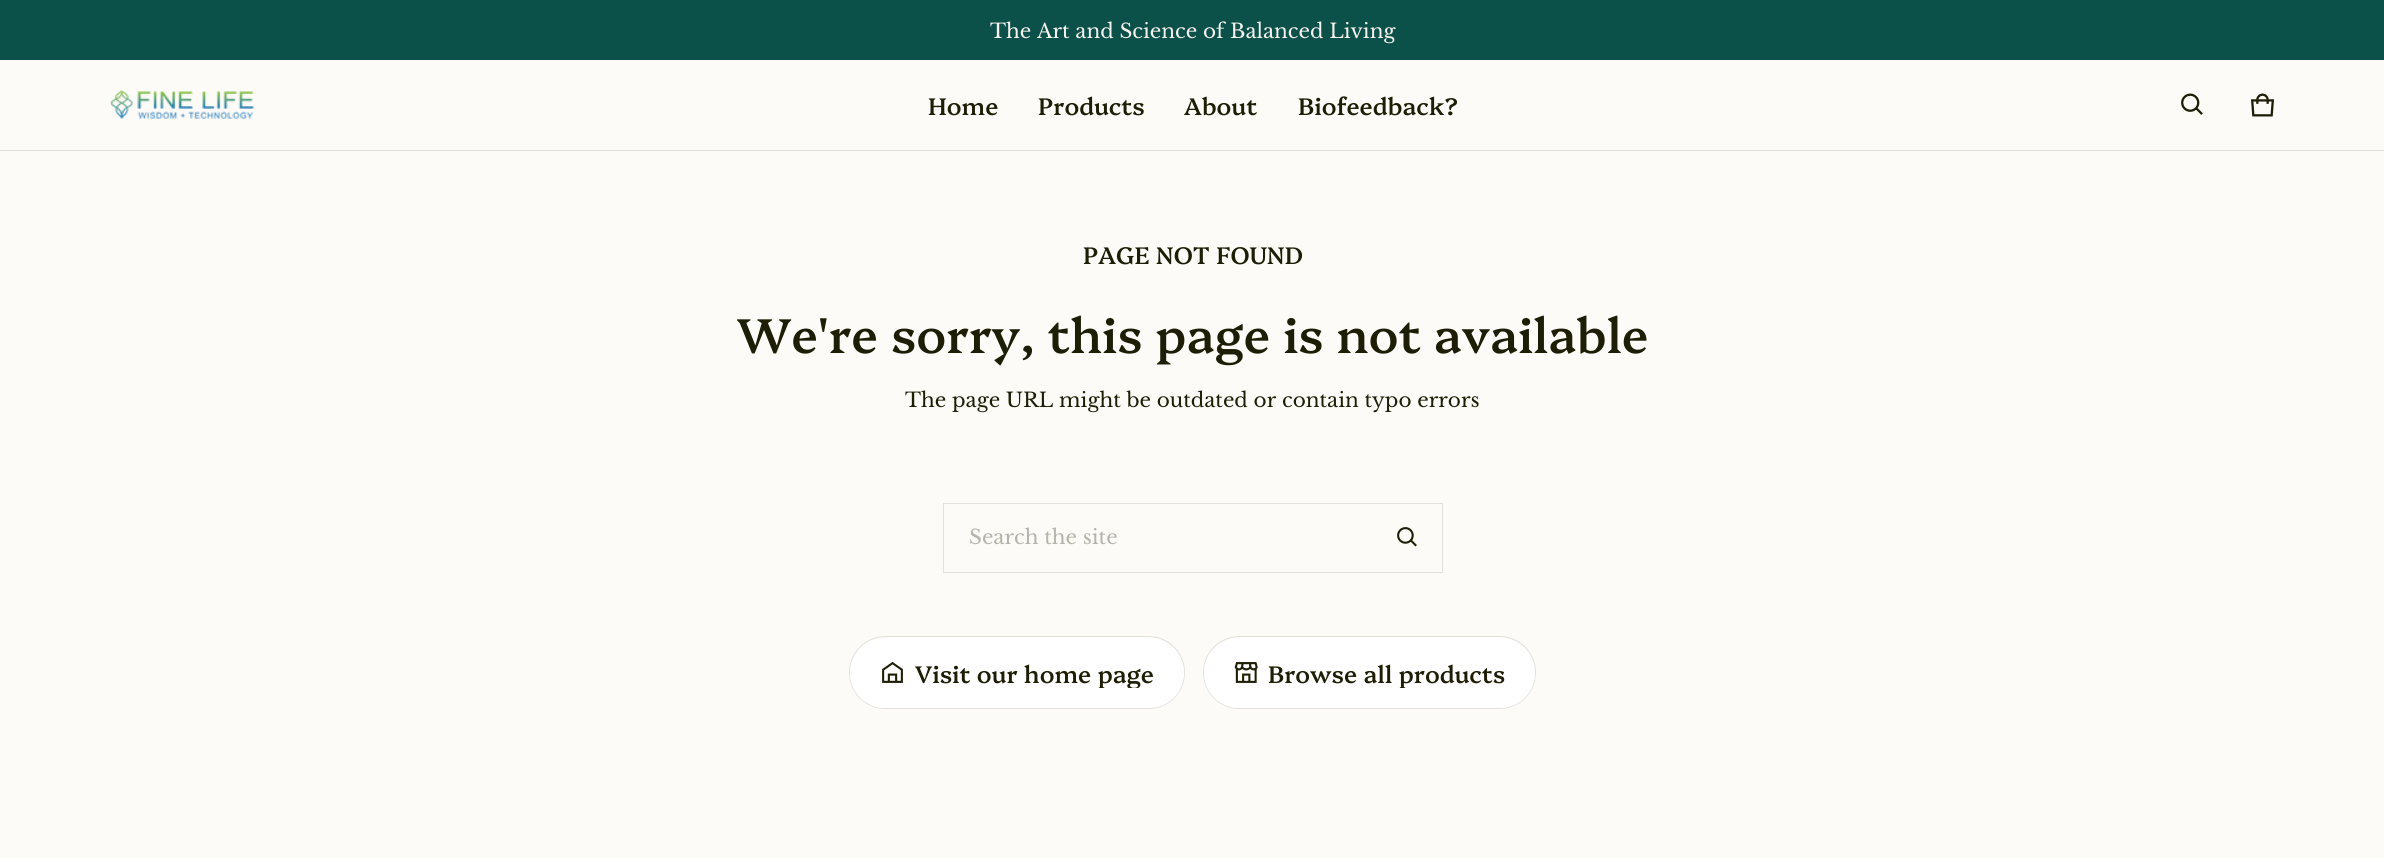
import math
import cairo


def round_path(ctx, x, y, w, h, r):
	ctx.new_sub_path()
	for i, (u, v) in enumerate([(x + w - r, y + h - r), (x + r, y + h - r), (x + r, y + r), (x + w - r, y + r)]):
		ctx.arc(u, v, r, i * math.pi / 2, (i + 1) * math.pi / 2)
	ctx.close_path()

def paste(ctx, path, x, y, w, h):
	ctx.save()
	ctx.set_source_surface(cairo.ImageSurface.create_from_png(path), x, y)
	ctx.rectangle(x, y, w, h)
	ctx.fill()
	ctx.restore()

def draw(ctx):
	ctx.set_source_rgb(0.992, 0.984, 0.969)
	ctx.paint()
	ctx.set_source_rgb(0.047, 0.318, 0.286)
	ctx.rectangle(0, 0, 2384, 60)
	ctx.fill()
	ctx.select_font_face('Libre Baskerville')
	ctx.set_font_size(20)
	ctx.set_source_rgb(0.961, 0.953, 0.937)
	ctx.move_to(990, 38)
	ctx.show_text('The Art and Science of Balanced Living')
	ctx.set_source_rgb(0.886, 0.878, 0.855)
	ctx.rectangle(0, 150, 2384, 1)
	ctx.fill()
	paste(ctx, 'media/1.png', 110, 90, 144, 29)
	ctx.select_font_face('Platypi Medium')
	ctx.set_font_size(24)
	ctx.set_source_rgb(0.118, 0.118, 0.024)
	for x, y, s in [
		(928, 115, 'Home'),
		(1038, 115, 'Products'),
		(1184, 115, 'About'),
		(1298, 115, 'Biofeedback?'),
	]:
		ctx.move_to(x, y)
		ctx.show_text(s)
	paste(ctx, 'media/2.png', 2181, 93, 22, 22)
	paste(ctx, 'media/3.png', 2251, 93, 23, 24)
	ctx.move_to(1083, 264)
	ctx.show_text('PAGE NOT FOUND')
	ctx.set_font_size(48.8)
	ctx.move_to(737, 353)
	ctx.show_text('We\'re sorry, this page is not available')
	ctx.select_font_face('Libre Baskerville')
	ctx.set_font_size(20)
	ctx.move_to(905, 407)
	ctx.show_text('The page URL might be outdated or contain typo errors')
	ctx.rectangle(943.5, 503.5, 499, 69)
	ctx.set_source_rgb(0.886, 0.878, 0.855)
	ctx.set_line_width(1)
	ctx.stroke()
	ctx.set_source_rgb(0.714, 0.706, 0.667)
	ctx.move_to(969, 544)
	ctx.show_text('Search the site')
	paste(ctx, 'media/4.png', 1397, 527, 20, 20)
	round_path(ctx, 849.5, 636.5, 335, 72, 36)
	ctx.set_source_rgb(0.886, 0.878, 0.855)
	ctx.stroke()
	ctx.set_source_rgb(1, 1, 1)
	round_path(ctx, 850, 638, 334, 70, 35)
	ctx.fill()
	paste(ctx, 'media/5.png', 882, 661, 21, 22)
	ctx.save()
	ctx.rectangle(880, 658, 274, 30)
	ctx.clip()
	ctx.select_font_face('Platypi Medium')
	ctx.set_font_size(24)
	ctx.set_source_rgb(0.118, 0.118, 0.024)
	ctx.move_to(915, 683)
	ctx.show_text('Visit our home page')
	ctx.restore()
	round_path(ctx, 1203.5, 636.5, 332, 72, 36)
	ctx.set_source_rgb(0.886, 0.878, 0.855)
	ctx.stroke()
	ctx.set_source_rgb(1, 1, 1)
	round_path(ctx, 1204, 638, 331, 70, 35)
	ctx.fill()
	paste(ctx, 'media/6.png', 1234, 662, 24, 21)
	ctx.save()
	ctx.rectangle(1234, 658, 271, 30)
	ctx.clip()
	ctx.select_font_face('Platypi Medium')
	ctx.set_font_size(24)
	ctx.set_source_rgb(0.118, 0.118, 0.024)
	ctx.move_to(1268, 683)
	ctx.show_text('Browse all products')
	ctx.restore()


surface = cairo.ImageSurface(cairo.FORMAT_RGB24, 2384, 858)
ctx = cairo.Context(surface)
options = cairo.FontOptions()
options.set_hint_metrics(cairo.HINT_METRICS_OFF)
options.set_hint_style(cairo.HINT_STYLE_NONE)
ctx.set_font_options(options)
ctx.set_miter_limit(4)
draw(ctx)
surface.write_to_png('image.png')
